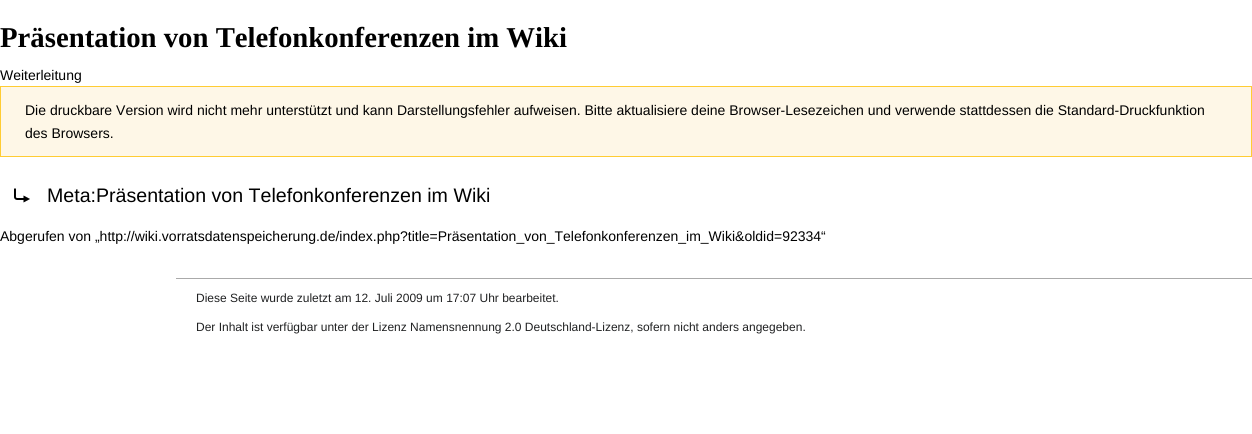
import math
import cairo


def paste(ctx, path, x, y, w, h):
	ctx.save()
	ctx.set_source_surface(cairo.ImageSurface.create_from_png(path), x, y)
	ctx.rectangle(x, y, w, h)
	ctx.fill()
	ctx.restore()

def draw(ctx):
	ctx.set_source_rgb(1, 1, 1)
	ctx.paint()
	ctx.select_font_face('Liberation Serif', cairo.FONT_SLANT_NORMAL, cairo.FONT_WEIGHT_BOLD)
	ctx.set_font_size(28.75)
	ctx.set_source_rgb(0, 0, 0)
	ctx.move_to(0, 47)
	ctx.show_text('Präsentation von Telefonkonferenzen im Wiki')
	ctx.select_font_face('Liberation Sans')
	ctx.set_font_size(14)
	ctx.move_to(0, 80)
	ctx.show_text('Weiterleitung')
	ctx.set_source_rgb(0.996, 0.965, 0.906)
	ctx.rectangle(0.5, 86.5, 1251, 70)
	ctx.fill_preserve()
	ctx.set_source_rgb(1, 0.8, 0.2)
	ctx.set_line_width(1)
	ctx.stroke()
	ctx.set_source_rgb(0, 0, 0)
	ctx.move_to(25, 115)
	ctx.show_text('Die druckbare Version wird nicht mehr unterstützt und kann Darstellungsfehler aufweisen. Bitte aktualisiere deine Browser-Lesezeichen und verwende stattdessen die Standard-Druckfunktion')
	ctx.move_to(25, 138)
	ctx.show_text('des Browsers.')
	paste(ctx, 'media/1.png', 14, 188, 16, 15)
	ctx.set_font_size(19.6)
	ctx.move_to(47, 202)
	ctx.show_text('Meta:Präsentation von Telefonkonferenzen im Wiki')
	ctx.set_font_size(14)
	ctx.move_to(0, 241)
	ctx.show_text('Abgerufen von „http://wiki.vorratsdatenspeicherung.de/index.php?title=Präsentation_von_Telefonkonferenzen_im_Wiki&oldid=92334“')
	ctx.set_source_rgb(0.667, 0.667, 0.667)
	ctx.rectangle(176, 278, 1076, 1)
	ctx.fill()
	ctx.set_font_size(12)
	ctx.set_source_rgb(0.125, 0.129, 0.133)
	ctx.move_to(196, 302)
	ctx.show_text('Diese Seite wurde zuletzt am 12. Juli 2009 um 17:07 Uhr bearbeitet.')
	ctx.move_to(196, 331)
	ctx.show_text('Der Inhalt ist verfügbar unter der Lizenz Namensnennung 2.0 Deutschland-Lizenz, sofern nicht anders angegeben.')


surface = cairo.ImageSurface(cairo.FORMAT_RGB24, 1252, 434)
ctx = cairo.Context(surface)
options = cairo.FontOptions()
options.set_hint_metrics(cairo.HINT_METRICS_OFF)
options.set_hint_style(cairo.HINT_STYLE_NONE)
ctx.set_font_options(options)
ctx.set_miter_limit(4)
draw(ctx)
surface.write_to_png('image.png')
